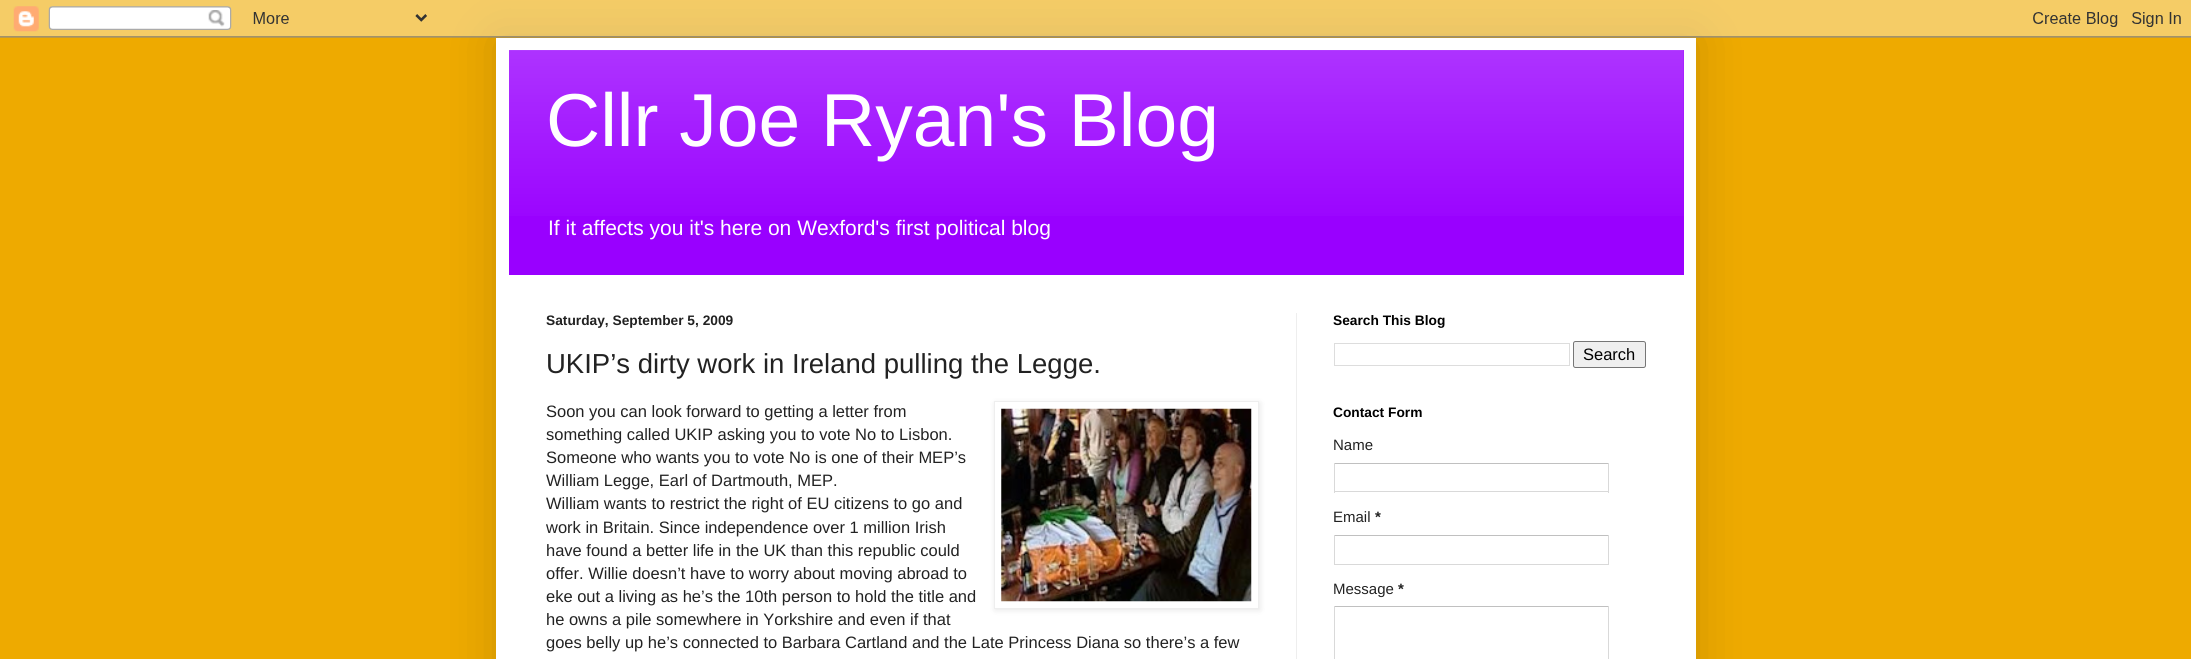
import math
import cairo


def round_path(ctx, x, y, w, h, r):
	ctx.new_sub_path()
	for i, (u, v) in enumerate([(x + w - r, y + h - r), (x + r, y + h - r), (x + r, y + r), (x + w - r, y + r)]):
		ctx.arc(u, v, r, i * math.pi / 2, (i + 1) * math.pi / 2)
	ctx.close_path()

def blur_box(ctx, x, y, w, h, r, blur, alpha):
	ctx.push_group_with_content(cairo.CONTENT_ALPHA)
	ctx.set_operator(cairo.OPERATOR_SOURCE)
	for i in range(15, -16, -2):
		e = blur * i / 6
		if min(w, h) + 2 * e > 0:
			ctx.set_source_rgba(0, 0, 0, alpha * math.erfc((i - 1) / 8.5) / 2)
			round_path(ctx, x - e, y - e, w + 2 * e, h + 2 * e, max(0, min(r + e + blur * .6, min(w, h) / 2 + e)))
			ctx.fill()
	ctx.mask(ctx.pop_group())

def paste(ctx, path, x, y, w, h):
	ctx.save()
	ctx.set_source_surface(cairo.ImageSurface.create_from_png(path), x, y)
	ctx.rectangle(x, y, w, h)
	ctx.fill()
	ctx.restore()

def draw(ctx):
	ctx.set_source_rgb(0.933, 0.667, 0)
	ctx.paint()
	ctx.set_source_rgb(0, 0, 0)
	blur_box(ctx, 496, 38, 1200, 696, 0, 25, 0.15)
	paste(ctx, 'media/1.png', 0, 0, 2191, 38)
	ctx.set_source_rgb(1, 1, 1)
	ctx.rectangle(496, 38, 1200, 621)
	ctx.fill()
	ctx.set_source_rgb(0.6, 0, 1)
	ctx.rectangle(509, 50, 1175, 225)
	ctx.fill()
	paste(ctx, 'media/2.png', 509, 50, 1175, 166)
	ctx.select_font_face('Liberation Sans')
	ctx.set_font_size(75)
	ctx.set_source_rgb(1, 1, 1)
	ctx.move_to(546, 146)
	ctx.show_text('Cllr Joe Ryan\'s Blog')
	ctx.set_font_size(21)
	ctx.move_to(548, 235)
	ctx.show_text('If it affects you it\'s here on Wexford\'s first political blog')
	ctx.set_source_rgb(0.933, 0.933, 0.933)
	ctx.rectangle(1296, 313, 1, 346)
	ctx.fill()
	ctx.select_font_face('Liberation Sans', cairo.FONT_SLANT_NORMAL, cairo.FONT_WEIGHT_BOLD)
	ctx.set_font_size(13.75)
	ctx.set_source_rgb(0.133, 0.133, 0.133)
	ctx.move_to(546, 325)
	ctx.show_text('Saturday, September 5, 2009')
	ctx.select_font_face('Liberation Sans')
	ctx.set_font_size(27.5)
	ctx.move_to(546, 373)
	ctx.show_text('UKIP’s dirty work in Ireland pulling the Legge.')
	ctx.set_font_size(16.5)
	ctx.move_to(546, 417)
	ctx.show_text('Soon you can look forward to getting a letter from')
	ctx.set_source_rgb(0, 0, 0)
	blur_box(ctx, 995, 403, 265, 207, 0, 3, 0.1)
	ctx.set_source_rgb(1, 1, 1)
	ctx.rectangle(994.5, 401.5, 264, 207)
	ctx.fill_preserve()
	ctx.set_source_rgb(0.933, 0.933, 0.933)
	ctx.set_line_width(1)
	ctx.stroke()
	paste(ctx, 'media/3.png', 1001, 408, 251, 194)
	ctx.set_source_rgb(0.133, 0.133, 0.133)
	for x, y, s in [
		(546, 440, 'something called UKIP asking you to vote No to Lisbon.'),
		(546, 463, 'Someone who wants you to vote No is one of their MEP’s'),
		(546, 486, 'William Legge, Earl of Dartmouth, MEP.'),
		(546, 509, 'William wants to restrict the right of EU citizens to go and'),
		(546, 533, 'work in Britain. Since independence over 1 million Irish'),
		(546, 556, 'have found a better life in the UK than this republic could'),
		(546, 579, 'offer. Willie doesn’t have to worry about moving abroad to'),
		(546, 602, 'eke out a living as he’s the 10th person to hold the title and'),
		(546, 625, 'he owns a pile somewhere in Yorkshire and even if that'),
		(546, 648, 'goes belly up he’s connected to Barbara Cartland and the Late Princess Diana so there’s a few'),
	]:
		ctx.move_to(x, y)
		ctx.show_text(s)
	ctx.select_font_face('Liberation Sans', cairo.FONT_SLANT_NORMAL, cairo.FONT_WEIGHT_BOLD)
	ctx.set_font_size(13.75)
	ctx.set_source_rgb(0, 0, 0)
	ctx.move_to(1333, 325)
	ctx.show_text('Search This Blog')
	ctx.rectangle(1334.5, 343.5, 235, 22)
	ctx.set_source_rgb(0.867, 0.867, 0.867)
	ctx.stroke()
	ctx.set_source_rgb(0.937, 0.937, 0.937)
	round_path(ctx, 1573.5, 341.5, 72, 26, 2)
	ctx.fill_preserve()
	ctx.set_source_rgb(0.463, 0.463, 0.463)
	ctx.stroke()
	ctx.select_font_face('Liberation Sans')
	ctx.set_font_size(16.5)
	ctx.set_source_rgb(0, 0, 0)
	ctx.move_to(1583, 360)
	ctx.show_text('Search')
	ctx.select_font_face('Liberation Sans', cairo.FONT_SLANT_NORMAL, cairo.FONT_WEIGHT_BOLD)
	ctx.set_font_size(13.75)
	ctx.move_to(1333, 417)
	ctx.show_text('Contact Form')
	ctx.select_font_face('Liberation Sans')
	ctx.set_font_size(15)
	ctx.set_source_rgb(0.133, 0.133, 0.133)
	ctx.move_to(1333, 450)
	ctx.show_text('Name')
	ctx.set_source_rgb(0.753, 0.753, 0.753)
	ctx.rectangle(1334, 463, 275, 1)
	ctx.fill()
	ctx.set_source_rgb(0.851, 0.851, 0.851)
	ctx.rectangle(1608, 463, 1, 30)
	ctx.rectangle(1334, 491, 275, 1)
	ctx.rectangle(1334, 463, 1, 30)
	ctx.fill()
	ctx.set_source_rgb(0.133, 0.133, 0.133)
	ctx.move_to(1333, 522)
	ctx.show_text('Email')
	ctx.select_font_face('Liberation Sans', cairo.FONT_SLANT_NORMAL, cairo.FONT_WEIGHT_BOLD)
	ctx.move_to(1375, 522)
	ctx.show_text('*')
	ctx.set_source_rgb(0.753, 0.753, 0.753)
	ctx.rectangle(1334, 535, 275, 1)
	ctx.fill()
	ctx.set_source_rgb(0.851, 0.851, 0.851)
	ctx.rectangle(1608, 535, 1, 30)
	ctx.rectangle(1334, 564, 275, 1)
	ctx.rectangle(1334, 535, 1, 30)
	ctx.fill()
	ctx.select_font_face('Liberation Sans')
	ctx.set_source_rgb(0.133, 0.133, 0.133)
	ctx.move_to(1333, 594)
	ctx.show_text('Message')
	ctx.select_font_face('Liberation Sans', cairo.FONT_SLANT_NORMAL, cairo.FONT_WEIGHT_BOLD)
	ctx.move_to(1398, 594)
	ctx.show_text('*')
	ctx.set_source_rgb(0.753, 0.753, 0.753)
	ctx.rectangle(1334, 606, 275, 1)
	ctx.fill()
	ctx.set_source_rgb(0.851, 0.851, 0.851)
	ctx.rectangle(1608, 606, 1, 53)
	ctx.rectangle(1334, 606, 1, 53)
	ctx.fill()


surface = cairo.ImageSurface(cairo.FORMAT_RGB24, 2191, 659)
ctx = cairo.Context(surface)
options = cairo.FontOptions()
options.set_hint_metrics(cairo.HINT_METRICS_OFF)
options.set_hint_style(cairo.HINT_STYLE_NONE)
ctx.set_font_options(options)
ctx.set_miter_limit(4)
draw(ctx)
surface.write_to_png('image.png')
